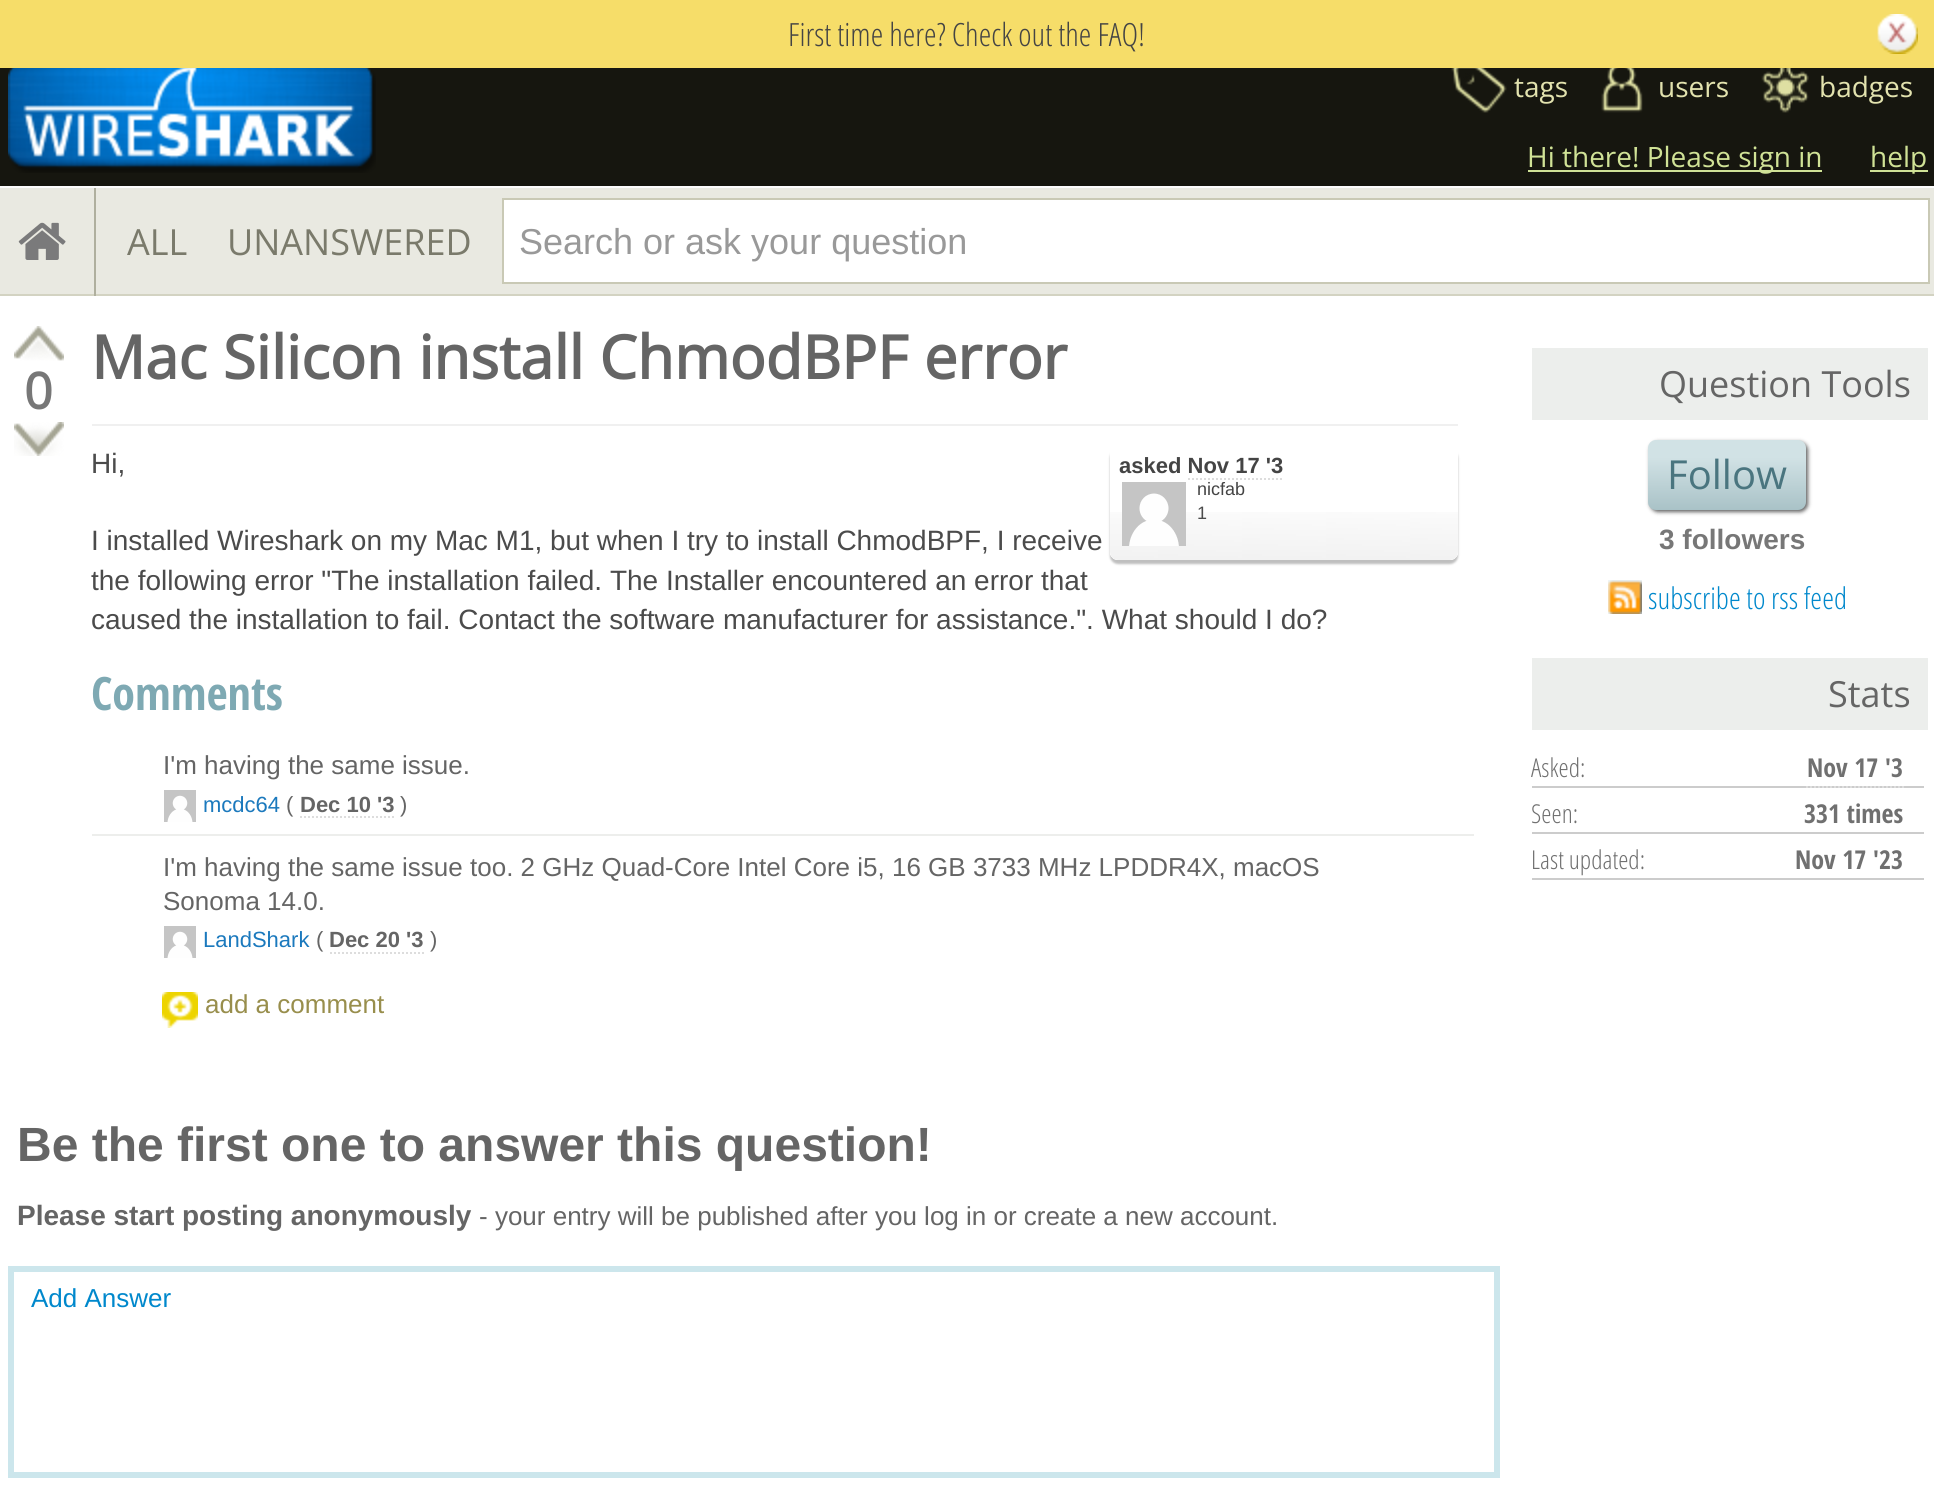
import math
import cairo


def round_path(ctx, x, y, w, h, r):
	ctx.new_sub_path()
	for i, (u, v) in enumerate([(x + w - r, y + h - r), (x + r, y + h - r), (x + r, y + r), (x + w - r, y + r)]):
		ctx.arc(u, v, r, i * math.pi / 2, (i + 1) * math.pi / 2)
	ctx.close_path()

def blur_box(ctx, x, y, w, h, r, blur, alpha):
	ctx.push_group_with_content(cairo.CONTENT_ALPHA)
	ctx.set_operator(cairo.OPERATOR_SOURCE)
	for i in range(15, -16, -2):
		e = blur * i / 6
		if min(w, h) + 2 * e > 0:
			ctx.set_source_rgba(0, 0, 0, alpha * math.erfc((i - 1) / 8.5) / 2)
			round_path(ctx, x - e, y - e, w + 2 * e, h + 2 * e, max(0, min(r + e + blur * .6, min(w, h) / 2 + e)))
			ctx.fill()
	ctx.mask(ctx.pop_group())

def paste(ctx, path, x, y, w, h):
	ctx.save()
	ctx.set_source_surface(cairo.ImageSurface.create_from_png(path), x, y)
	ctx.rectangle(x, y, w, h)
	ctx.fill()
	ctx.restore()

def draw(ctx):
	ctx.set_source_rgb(1, 1, 1)
	ctx.paint()
	ctx.set_source_rgb(0.961, 0.867, 0.412)
	ctx.rectangle(0, 0, 1934, 68)
	ctx.fill()
	ctx.select_font_face('Open Sans Condensed Light')
	ctx.set_font_size(32)
	ctx.set_source_rgb(0.267, 0.267, 0.267)
	ctx.move_to(788, 46)
	ctx.show_text('First time here? Check out the FAQ!')
	paste(ctx, 'media/1.png', 1877, 14, 41, 40)
	ctx.set_source_rgb(0.086, 0.086, 0.059)
	ctx.rectangle(0, 68, 1934, 118)
	ctx.fill()
	paste(ctx, 'media/2.png', 8, 68, 368, 105)
	paste(ctx, 'media/3.png', 1451, 68, 56, 45)
	ctx.select_font_face('Open Sans')
	ctx.set_font_size(28)
	ctx.set_source_rgb(0.886, 0.886, 0.682)
	ctx.move_to(1514, 97)
	ctx.show_text('tags')
	paste(ctx, 'media/4.png', 1601, 68, 42, 45)
	ctx.move_to(1658, 97)
	ctx.show_text('users')
	paste(ctx, 'media/5.png', 1761, 68, 48, 45)
	ctx.move_to(1819, 97)
	ctx.show_text('badges')
	ctx.set_source_rgb(0.816, 0.886, 0.588)
	ctx.rectangle(1528, 170, 294, 2)
	ctx.fill()
	ctx.move_to(1527, 167)
	ctx.show_text('Hi there! Please sign in')
	ctx.rectangle(1870, 170, 58, 2)
	ctx.fill()
	ctx.move_to(1870, 167)
	ctx.show_text('help')
	ctx.set_source_rgb(0.914, 0.914, 0.882)
	ctx.rectangle(0, 188, 1934, 106)
	ctx.fill()
	ctx.set_source_rgb(0.988, 0.988, 0.988)
	ctx.rectangle(0, 186, 1934, 2)
	ctx.fill()
	ctx.set_source_rgb(0.827, 0.827, 0.761)
	ctx.rectangle(0, 294, 1934, 2)
	ctx.fill()
	ctx.set_source_rgb(0.686, 0.686, 0.62)
	ctx.rectangle(94, 188, 2, 108)
	ctx.fill()
	paste(ctx, 'media/6.png', 18, 222, 48, 38)
	ctx.set_font_size(36)
	ctx.set_source_rgb(0.478, 0.478, 0.42)
	ctx.move_to(127, 255)
	ctx.show_text('ALL')
	ctx.move_to(227, 255)
	ctx.show_text('UNANSWERED')
	ctx.set_source_rgb(1, 1, 1)
	ctx.rectangle(503, 199, 1426, 84)
	ctx.fill_preserve()
	ctx.set_source_rgb(0.788, 0.788, 0.71)
	ctx.stroke()
	ctx.select_font_face('Liberation Sans')
	ctx.set_source_rgb(0.6, 0.6, 0.6)
	ctx.move_to(519, 254)
	ctx.show_text('Search or ask your question')
	paste(ctx, 'media/7.png', 14, 326, 50, 35)
	ctx.select_font_face('Open Sans', cairo.FONT_SLANT_NORMAL, cairo.FONT_WEIGHT_BOLD)
	ctx.set_font_size(50)
	ctx.set_source_rgb(0.467, 0.467, 0.467)
	ctx.move_to(24, 409)
	ctx.show_text('0')
	paste(ctx, 'media/8.png', 14, 422, 50, 34)
	ctx.set_font_size(60)
	ctx.set_source_rgb(0.396, 0.396, 0.396)
	ctx.move_to(91, 379)
	ctx.show_text('Mac Silicon install ChmodBPF error')
	ctx.set_source_rgb(0.941, 0.941, 0.941)
	ctx.rectangle(92, 424, 1366, 2)
	ctx.fill()
	ctx.select_font_face('Liberation Sans')
	ctx.set_font_size(28)
	ctx.set_source_rgb(0.294, 0.294, 0.294)
	for x, y, s in [
		(91, 473, 'Hi,'),
		(91, 550, 'I installed Wireshark on my Mac M1, but when I try to install ChmodBPF, I receive'),
		(91, 590, 'the following error "The installation failed. The Installer encountered an error that'),
		(91, 629, 'caused the installation to fail. Contact the software manufacturer for assistance.". What should I do?'),
	]:
		ctx.move_to(x, y)
		ctx.show_text(s)
	ctx.save()
	ctx.set_fill_rule(cairo.FILL_RULE_EVEN_ODD)
	ctx.new_path()
	ctx.move_to(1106, 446)
	ctx.line_to(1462, 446)
	ctx.line_to(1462, 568)
	ctx.line_to(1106, 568)
	ctx.close_path()
	ctx.move_to(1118, 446)
	ctx.line_to(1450, 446)
	ctx.curve_to(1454.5, 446, 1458, 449.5, 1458, 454)
	ctx.line_to(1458, 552)
	ctx.curve_to(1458, 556.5, 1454.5, 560, 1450, 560)
	ctx.line_to(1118, 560)
	ctx.curve_to(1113.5, 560, 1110, 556.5, 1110, 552)
	ctx.line_to(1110, 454)
	ctx.curve_to(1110, 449.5, 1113.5, 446, 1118, 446)
	ctx.close_path()
	ctx.clip()
	ctx.set_source_rgb(0.749, 0.749, 0.749)
	blur_box(ctx, 1110, 450, 348, 114, 8, 1, 1)
	ctx.restore()
	ctx.set_source_rgb(1, 1, 1)
	round_path(ctx, 1110, 446, 348, 114, 8)
	ctx.fill()
	paste(ctx, 'media/9.png', 1110, 512, 348, 48)
	ctx.select_font_face('Liberation Sans', cairo.FONT_SLANT_NORMAL, cairo.FONT_WEIGHT_BOLD)
	ctx.set_font_size(22)
	ctx.set_source_rgb(0.267, 0.267, 0.267)
	ctx.move_to(1119, 473)
	ctx.show_text('asked Nov 17 \'3')
	ctx.new_path()
	ctx.move_to(1188, 479)
	ctx.line_to(1284, 479)
	ctx.set_source_rgb(0.867, 0.867, 0.867)
	ctx.set_dash([2, 2])
	ctx.stroke()
	paste(ctx, 'media/10.png', 1122, 482, 64, 64)
	ctx.select_font_face('Liberation Sans')
	ctx.set_font_size(18)
	ctx.set_source_rgb(0.267, 0.267, 0.267)
	ctx.move_to(1197, 495)
	ctx.show_text('nicfab')
	ctx.set_source_rgb(0.294, 0.294, 0.294)
	ctx.move_to(1197, 519)
	ctx.show_text('1')
	ctx.select_font_face('Open Sans Condensed', cairo.FONT_SLANT_NORMAL, cairo.FONT_WEIGHT_BOLD)
	ctx.set_font_size(46)
	ctx.set_source_rgb(0.494, 0.663, 0.702)
	ctx.move_to(91, 710)
	ctx.show_text('Comments')
	ctx.set_source_rgb(0.929, 0.933, 0.922)
	ctx.rectangle(92, 834, 1382, 2)
	ctx.fill()
	ctx.select_font_face('Liberation Sans')
	ctx.set_font_size(26)
	ctx.set_source_rgb(0.396, 0.396, 0.396)
	ctx.move_to(163, 774)
	ctx.show_text('I\'m having the same issue.')
	paste(ctx, 'media/11.png', 164, 790, 32, 32)
	ctx.set_font_size(22)
	ctx.set_source_rgb(0.106, 0.475, 0.741)
	ctx.move_to(203, 812)
	ctx.show_text('mcdc64')
	ctx.set_source_rgb(0.396, 0.396, 0.396)
	ctx.move_to(286, 812)
	ctx.show_text('(')
	ctx.select_font_face('Liberation Sans', cairo.FONT_SLANT_NORMAL, cairo.FONT_WEIGHT_BOLD)
	ctx.move_to(300, 812)
	ctx.show_text('Dec 10 \'3')
	ctx.new_path()
	ctx.move_to(300, 817)
	ctx.line_to(394, 817)
	ctx.set_source_rgb(0.867, 0.867, 0.867)
	ctx.stroke()
	ctx.select_font_face('Liberation Sans')
	ctx.set_source_rgb(0.396, 0.396, 0.396)
	ctx.move_to(400, 812)
	ctx.show_text(')')
	ctx.set_font_size(26)
	ctx.move_to(163, 876)
	ctx.show_text('I\'m having the same issue too. 2 GHz Quad-Core Intel Core i5, 16 GB 3733 MHz LPDDR4X, macOS')
	ctx.move_to(163, 910)
	ctx.show_text('Sonoma 14.0.')
	paste(ctx, 'media/11.png', 164, 926, 32, 32)
	ctx.set_font_size(22)
	ctx.set_source_rgb(0.106, 0.475, 0.741)
	ctx.move_to(203, 947)
	ctx.show_text('LandShark')
	ctx.set_source_rgb(0.396, 0.396, 0.396)
	ctx.move_to(316, 947)
	ctx.show_text('(')
	ctx.select_font_face('Liberation Sans', cairo.FONT_SLANT_NORMAL, cairo.FONT_WEIGHT_BOLD)
	ctx.move_to(329, 947)
	ctx.show_text('Dec 20 \'3')
	ctx.new_path()
	ctx.move_to(330, 953)
	ctx.line_to(424, 953)
	ctx.set_source_rgb(0.867, 0.867, 0.867)
	ctx.stroke()
	ctx.select_font_face('Liberation Sans')
	ctx.set_source_rgb(0.396, 0.396, 0.396)
	ctx.move_to(430, 947)
	ctx.show_text(')')
	paste(ctx, 'media/12.png', 162, 992, 36, 36)
	ctx.set_font_size(26)
	ctx.set_source_rgb(0.596, 0.557, 0.298)
	ctx.move_to(205, 1013)
	ctx.show_text('add a comment')
	ctx.select_font_face('Liberation Sans', cairo.FONT_SLANT_NORMAL, cairo.FONT_WEIGHT_BOLD)
	ctx.set_font_size(48)
	ctx.set_source_rgb(0.396, 0.396, 0.396)
	ctx.move_to(17, 1161)
	ctx.show_text('Be the first one to answer this question!')
	ctx.set_font_size(28)
	ctx.move_to(17, 1225)
	ctx.show_text('Please start posting anonymously')
	ctx.select_font_face('Liberation Sans')
	ctx.set_font_size(26)
	ctx.move_to(479, 1225)
	ctx.show_text('- your entry will be published after you log in or create a new account.')
	ctx.rectangle(11, 1269, 1486, 206)
	ctx.set_source_rgb(0.8, 0.902, 0.925)
	ctx.set_line_width(6)
	ctx.set_dash([])
	ctx.stroke()
	ctx.set_source_rgb(0, 0.533, 0.8)
	ctx.move_to(31, 1307)
	ctx.show_text('Add Answer')
	ctx.set_source_rgb(0.925, 0.933, 0.922)
	ctx.rectangle(1532, 348, 396, 72)
	ctx.fill()
	ctx.select_font_face('Open Sans')
	ctx.set_font_size(36)
	ctx.set_source_rgb(0.396, 0.396, 0.396)
	ctx.move_to(1659, 397)
	ctx.show_text('Question Tools')
	ctx.set_source_rgb(0.388, 0.388, 0.388)
	blur_box(ctx, 1650, 442, 158, 70, 8, 2, 1)
	gradient = cairo.LinearGradient(1727, 440, 1727, 510)
	gradient.add_color_stop_rgba(0, 0.82, 0.886, 0.898, 1)
	gradient.add_color_stop_rgba(0.25, 0.82, 0.886, 0.898, 1)
	gradient.add_color_stop_rgba(1, 0.663, 0.761, 0.78, 1)
	ctx.set_source(gradient)
	round_path(ctx, 1648, 440, 158, 70, 8)
	ctx.fill()
	ctx.set_font_size(40)
	ctx.set_source_rgb(0.29, 0.459, 0.498)
	ctx.move_to(1667, 489)
	ctx.show_text('Follow')
	ctx.select_font_face('Liberation Sans', cairo.FONT_SLANT_NORMAL, cairo.FONT_WEIGHT_BOLD)
	ctx.set_font_size(28)
	ctx.set_source_rgb(0.467, 0.467, 0.467)
	ctx.move_to(1659, 549)
	ctx.show_text('3 followers')
	paste(ctx, 'media/13.png', 1608, 580, 34, 34)
	ctx.select_font_face('Open Sans Condensed Light')
	ctx.set_font_size(30)
	ctx.set_source_rgb(0, 0.533, 0.8)
	ctx.move_to(1648, 609)
	ctx.show_text('subscribe to rss feed')
	ctx.set_source_rgb(0.925, 0.933, 0.922)
	ctx.rectangle(1532, 658, 396, 72)
	ctx.fill()
	ctx.select_font_face('Open Sans')
	ctx.set_font_size(36)
	ctx.set_source_rgb(0.396, 0.396, 0.396)
	ctx.move_to(1828, 707)
	ctx.show_text('Stats')
	ctx.set_source_rgb(0.8, 0.8, 0.8)
	ctx.rectangle(1532, 786, 392, 2)
	ctx.fill()
	ctx.select_font_face('Open Sans Condensed Light')
	ctx.set_font_size(26)
	ctx.set_source_rgb(0.439, 0.439, 0.439)
	ctx.move_to(1531, 777)
	ctx.show_text('Asked:')
	ctx.select_font_face('Open Sans Condensed', cairo.FONT_SLANT_NORMAL, cairo.FONT_WEIGHT_BOLD)
	ctx.move_to(1807, 777)
	ctx.show_text('Nov 17 \'3')
	ctx.new_path()
	ctx.move_to(1806, 787)
	ctx.line_to(1904, 787)
	ctx.set_source_rgb(0.867, 0.867, 0.867)
	ctx.set_line_width(2)
	ctx.set_dash([2, 2])
	ctx.stroke()
	ctx.set_source_rgb(0.8, 0.8, 0.8)
	ctx.rectangle(1532, 832, 392, 2)
	ctx.fill()
	ctx.select_font_face('Open Sans Condensed Light')
	ctx.set_source_rgb(0.439, 0.439, 0.439)
	ctx.move_to(1531, 823)
	ctx.show_text('Seen:')
	ctx.select_font_face('Open Sans Condensed', cairo.FONT_SLANT_NORMAL, cairo.FONT_WEIGHT_BOLD)
	ctx.move_to(1804, 823)
	ctx.show_text('331 times')
	ctx.set_source_rgb(0.8, 0.8, 0.8)
	ctx.rectangle(1532, 878, 392, 2)
	ctx.fill()
	ctx.select_font_face('Open Sans Condensed Light')
	ctx.set_source_rgb(0.439, 0.439, 0.439)
	ctx.move_to(1531, 869)
	ctx.show_text('Last updated:')
	ctx.select_font_face('Open Sans Condensed', cairo.FONT_SLANT_NORMAL, cairo.FONT_WEIGHT_BOLD)
	ctx.move_to(1795, 869)
	ctx.show_text('Nov 17 \'23')


surface = cairo.ImageSurface(cairo.FORMAT_RGB24, 1934, 1506)
ctx = cairo.Context(surface)
options = cairo.FontOptions()
options.set_hint_metrics(cairo.HINT_METRICS_OFF)
options.set_hint_style(cairo.HINT_STYLE_NONE)
ctx.set_font_options(options)
ctx.set_miter_limit(4)
draw(ctx)
surface.write_to_png('image.png')
